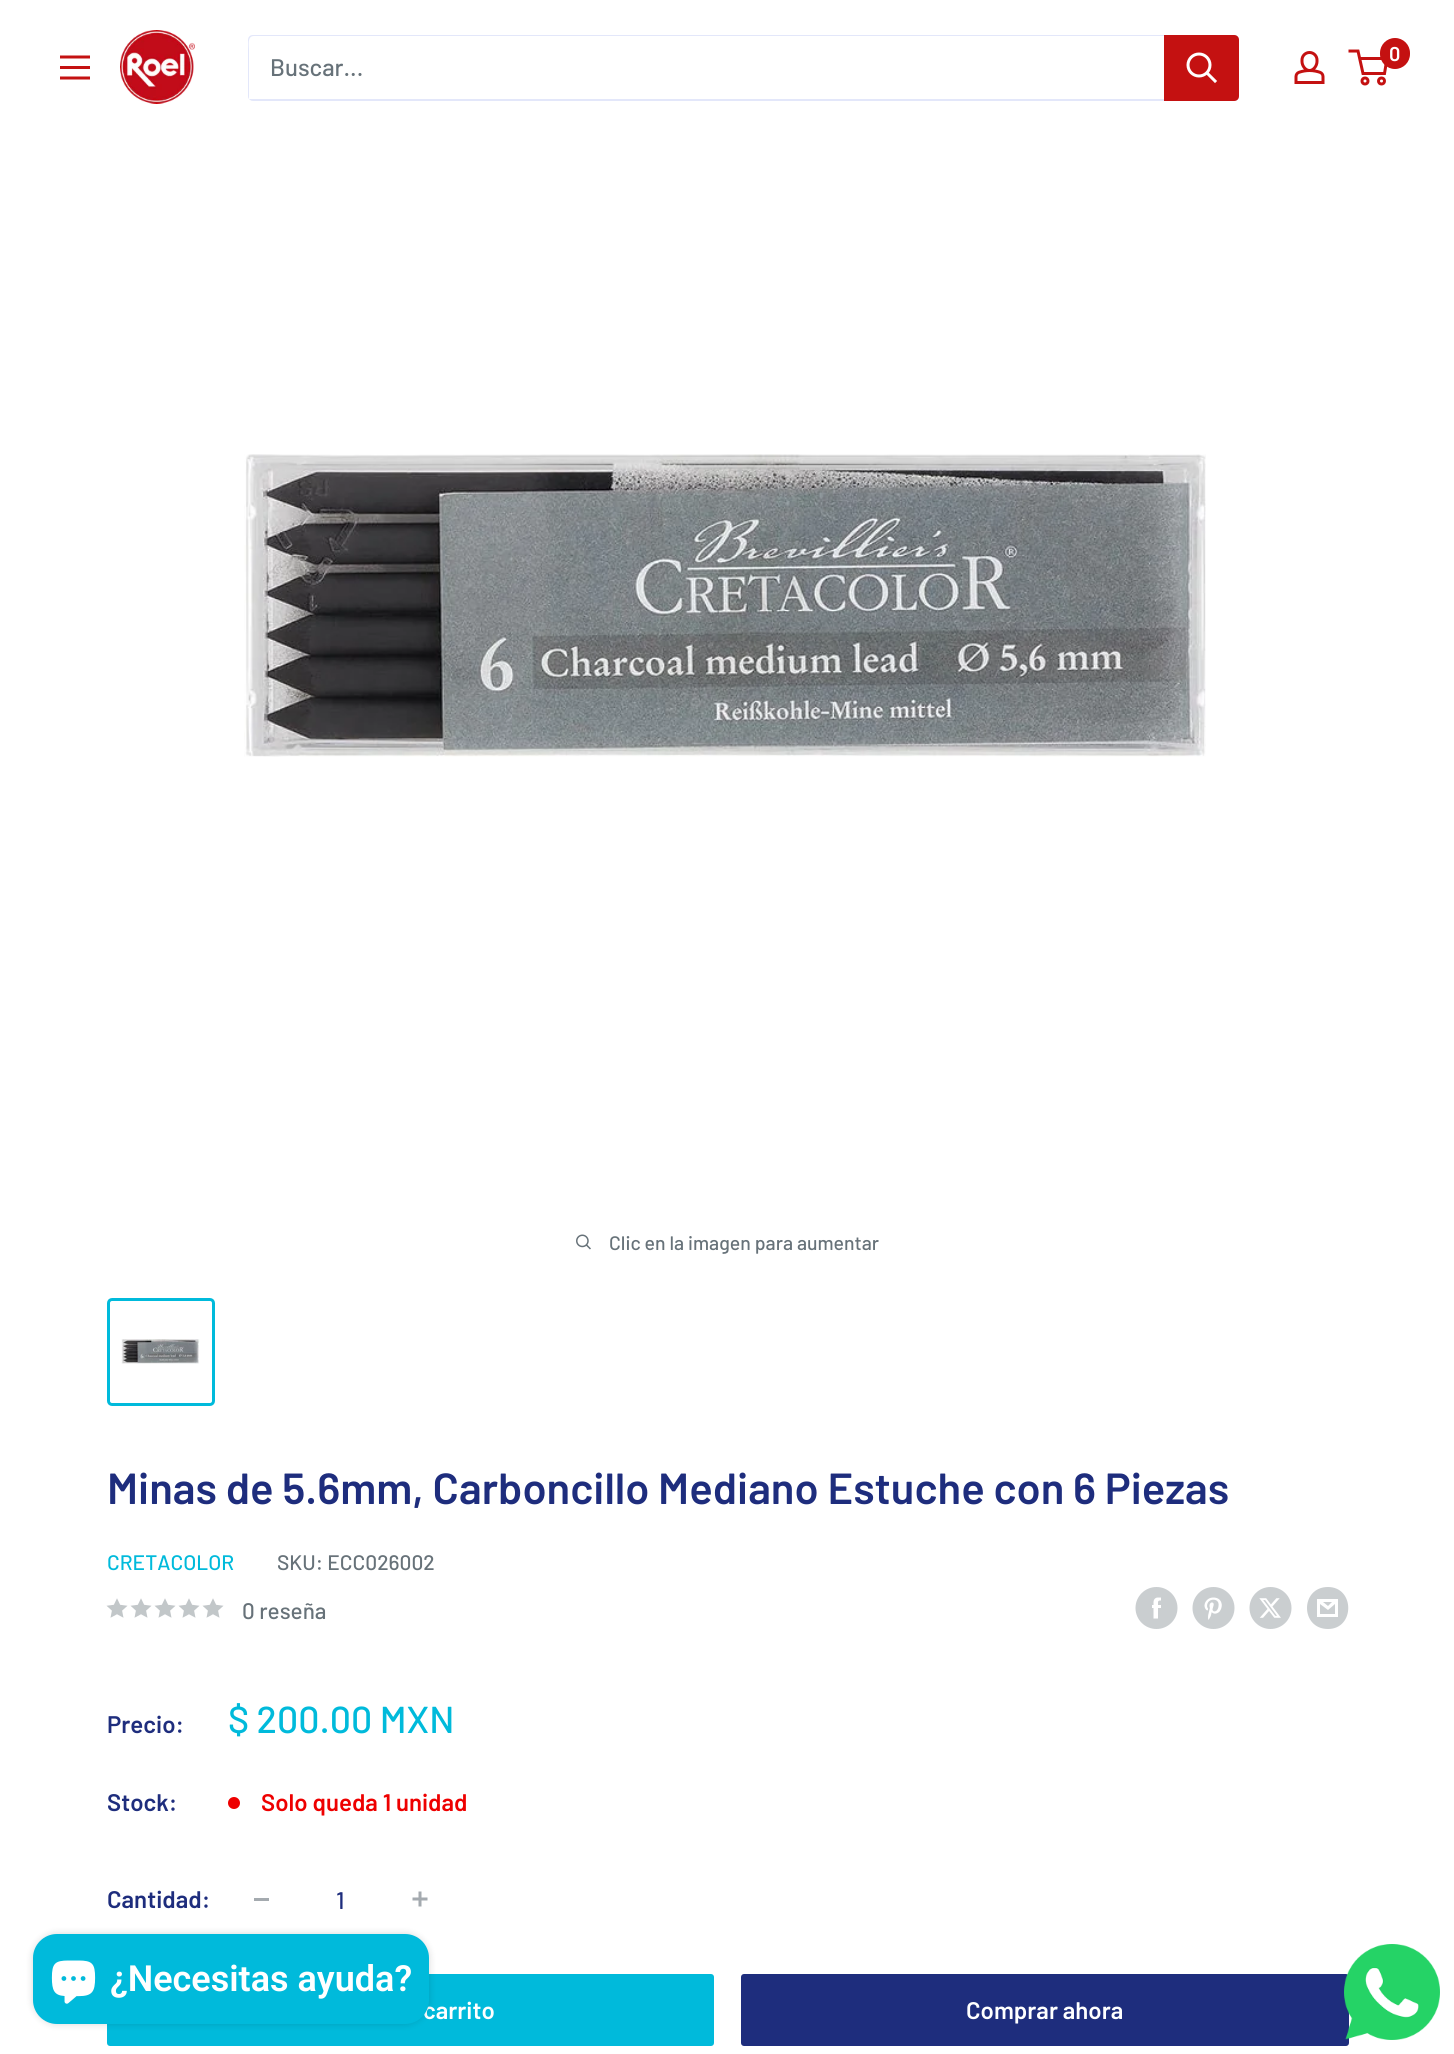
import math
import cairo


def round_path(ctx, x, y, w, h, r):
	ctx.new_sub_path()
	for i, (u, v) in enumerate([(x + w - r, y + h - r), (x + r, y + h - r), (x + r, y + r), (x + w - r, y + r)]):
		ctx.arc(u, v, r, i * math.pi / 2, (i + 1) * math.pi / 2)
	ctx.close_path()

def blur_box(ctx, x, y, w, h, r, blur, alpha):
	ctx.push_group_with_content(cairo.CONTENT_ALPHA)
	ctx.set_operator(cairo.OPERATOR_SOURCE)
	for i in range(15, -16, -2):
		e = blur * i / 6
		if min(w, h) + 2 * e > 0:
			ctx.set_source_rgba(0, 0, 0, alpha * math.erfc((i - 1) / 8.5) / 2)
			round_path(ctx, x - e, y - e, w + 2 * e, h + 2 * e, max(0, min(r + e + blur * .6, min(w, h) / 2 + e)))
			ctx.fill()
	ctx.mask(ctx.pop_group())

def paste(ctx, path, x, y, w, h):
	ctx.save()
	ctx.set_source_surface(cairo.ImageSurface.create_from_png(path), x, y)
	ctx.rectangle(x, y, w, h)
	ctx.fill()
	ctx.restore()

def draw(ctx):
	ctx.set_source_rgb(1, 1, 1)
	ctx.paint()
	paste(ctx, 'media/1.png', 60, 55, 30, 25)
	paste(ctx, 'media/2.png', 120, 30, 75, 74)
	ctx.set_source_rgb(0.89, 0.906, 0.98)
	ctx.new_path()
	ctx.move_to(249, 99)
	ctx.curve_to(250, 100, 251, 101, 253, 101)
	ctx.line_to(1234, 101)
	ctx.curve_to(1237, 101, 1239, 99, 1239, 96)
	ctx.line_to(1239, 40)
	ctx.curve_to(1239, 39, 1239, 38, 1238, 37)
	ctx.line_to(1238, 85)
	ctx.curve_to(1238, 88, 1240, 99, 1233, 99)
	ctx.close_path()
	ctx.fill()
	ctx.new_path()
	ctx.move_to(254, 36)
	ctx.line_to(1237, 36)
	ctx.curve_to(1236, 35, 1235, 35, 1234, 35)
	ctx.line_to(253, 35)
	ctx.curve_to(250, 35, 248, 37, 248, 40)
	ctx.line_to(248, 96)
	ctx.curve_to(248, 97, 248, 98, 249, 99)
	ctx.line_to(249, 50)
	ctx.curve_to(249, 45, 247, 36, 254, 36)
	ctx.close_path()
	ctx.fill()
	ctx.select_font_face('Barlow Medium')
	ctx.set_font_size(24)
	ctx.set_source_rgb(0.404, 0.447, 0.475)
	ctx.move_to(270, 76)
	ctx.show_text('Buscar...')
	ctx.set_source_rgb(0.769, 0.067, 0.067)
	ctx.new_path()
	ctx.move_to(1164, 35)
	ctx.line_to(1234, 35)
	ctx.curve_to(1237, 35, 1239, 37, 1239, 40)
	ctx.line_to(1239, 96)
	ctx.curve_to(1239, 99, 1237, 101, 1234, 101)
	ctx.line_to(1164, 101)
	ctx.close_path()
	ctx.fill()
	ctx.new_path()
	ctx.move_to(1215, 81)
	ctx.line_to(1207.5, 73.5)
	ctx.set_source_rgb(1, 1, 1)
	ctx.set_line_width(3)
	ctx.set_line_cap(cairo.LINE_CAP_SQUARE)
	ctx.stroke()
	ctx.arc(1199, 65, 11, 0, 2 * math.pi)
	ctx.set_line_cap(cairo.LINE_CAP_BUTT)
	ctx.stroke()
	paste(ctx, 'media/3.png', 1294, 51, 31, 33)
	ctx.arc(1365, 81, 3, 0, 2 * math.pi)
	ctx.set_source_rgb(0.769, 0.067, 0.067)
	ctx.stroke()
	ctx.arc(1381.5, 81, 3, 0, 2 * math.pi)
	ctx.stroke()
	ctx.new_path()
	ctx.move_to(1359.5, 58.5)
	ctx.line_to(1387, 58.5)
	ctx.line_to(1384.5, 73.5)
	ctx.line_to(1363, 73.5)
	ctx.line_to(1358, 51)
	ctx.line_to(1348.5, 51)
	ctx.stroke()
	round_path(ctx, 1380, 38, 30, 31, 15)
	ctx.fill()
	ctx.select_font_face('Barlow SemiBold')
	ctx.set_font_size(20)
	ctx.set_source_rgb(1, 1, 1)
	ctx.move_to(1389, 61)
	ctx.show_text('0')
	paste(ctx, 'media/4.png', 244, 454, 962, 303)
	paste(ctx, 'media/5.png', 576, 1234, 15, 16)
	ctx.select_font_face('Barlow Medium')
	ctx.set_font_size(19.5)
	ctx.set_source_rgb(0.404, 0.447, 0.475)
	ctx.move_to(609, 1250)
	ctx.show_text('Clic en la imagen para aumentar')
	round_path(ctx, 108.5, 1299.5, 105, 105, 3.5)
	ctx.set_source_rgb(0, 0.729, 0.859)
	ctx.stroke()
	paste(ctx, 'media/6.png', 121, 1339, 79, 25)
	ctx.select_font_face('Barlow SemiBold')
	ctx.set_font_size(43.5)
	ctx.set_source_rgb(0.118, 0.176, 0.49)
	ctx.move_to(107, 1504)
	ctx.show_text('Minas de 5.6mm, Carboncillo Mediano Estuche con 6 Piezas')
	ctx.select_font_face('Barlow Medium')
	ctx.set_font_size(21)
	ctx.set_source_rgb(0, 0.729, 0.859)
	ctx.move_to(107, 1570)
	ctx.show_text('CRETACOLOR')
	ctx.set_source_rgb(0.404, 0.447, 0.475)
	ctx.move_to(277, 1570)
	ctx.show_text('SKU: ECC026002')
	paste(ctx, 'media/7.png', 106, 1598, 22, 20)
	paste(ctx, 'media/7.png', 130, 1598, 22, 20)
	paste(ctx, 'media/7.png', 154, 1598, 22, 20)
	paste(ctx, 'media/7.png', 178, 1598, 22, 20)
	paste(ctx, 'media/7.png', 202, 1598, 22, 20)
	ctx.set_font_size(22.5)
	ctx.move_to(242, 1619)
	ctx.show_text('0 reseña')
	paste(ctx, 'media/8.png', 1135, 1587, 43, 42)
	paste(ctx, 'media/9.png', 1192, 1587, 43, 42)
	paste(ctx, 'media/10.png', 1249, 1587, 43, 42)
	ctx.set_source_rgb(0.792, 0.808, 0.816)
	ctx.new_path()
	ctx.move_to(1328, 1629)
	ctx.curve_to(1300, 1629, 1300, 1587, 1328, 1587)
	ctx.curve_to(1355, 1587, 1355, 1629, 1328, 1629)
	ctx.close_path()
	ctx.move_to(1323, 1602)
	ctx.line_to(1332, 1602)
	ctx.line_to(1328, 1606)
	ctx.close_path()
	ctx.move_to(1335, 1604)
	ctx.line_to(1335, 1614)
	ctx.line_to(1320, 1614)
	ctx.line_to(1320, 1604)
	ctx.line_to(1328, 1610)
	ctx.close_path()
	ctx.move_to(1338, 1599)
	ctx.line_to(1317, 1599)
	ctx.line_to(1317, 1617)
	ctx.line_to(1338, 1617)
	ctx.close_path()
	ctx.fill()
	ctx.select_font_face('Barlow SemiBold')
	ctx.set_font_size(24)
	ctx.set_source_rgb(0.118, 0.176, 0.49)
	ctx.move_to(107, 1733)
	ctx.show_text('Precio:')
	ctx.select_font_face('Barlow Medium')
	ctx.set_font_size(37.5)
	ctx.set_source_rgb(0, 0.729, 0.859)
	ctx.move_to(228, 1733)
	ctx.show_text('$ 200.00 MXN')
	ctx.select_font_face('Barlow SemiBold')
	ctx.set_font_size(24)
	ctx.set_source_rgb(0.118, 0.176, 0.49)
	ctx.move_to(107, 1811)
	ctx.show_text('Stock:')
	ctx.set_source_rgb(0.933, 0, 0)
	ctx.new_path()
	ctx.arc(234, 1803, 6, 0, 2 * math.pi)
	ctx.fill()
	ctx.move_to(261, 1811)
	ctx.show_text('Solo queda 1 unidad')
	ctx.set_source_rgb(0.118, 0.176, 0.49)
	ctx.move_to(107, 1908)
	ctx.show_text('Cantidad:')
	ctx.set_source_rgb(0.643, 0.667, 0.686)
	ctx.rectangle(254, 1898, 15, 3)
	ctx.fill()
	ctx.select_font_face('Barlow Medium')
	ctx.set_source_rgb(0.118, 0.176, 0.49)
	ctx.move_to(336, 1909)
	ctx.show_text('1')
	paste(ctx, 'media/11.png', 412, 1891, 16, 16)
	ctx.set_source_rgb(0, 0.729, 0.859)
	round_path(ctx, 107, 1974, 607, 72, 3)
	ctx.fill()
	ctx.select_font_face('Barlow SemiBold')
	ctx.set_source_rgb(1, 1, 1)
	ctx.move_to(423, 2019)
	ctx.show_text('carrito')
	ctx.set_source_rgb(0.118, 0.176, 0.49)
	round_path(ctx, 741, 1974, 608, 72, 3)
	ctx.fill()
	ctx.set_source_rgb(1, 1, 1)
	ctx.move_to(966, 2019)
	ctx.show_text('Comprar ahora')
	paste(ctx, 'media/12.png', 1344, 1944, 96, 96)
	ctx.set_source_rgb(0, 0, 0)
	blur_box(ctx, 33, 1934, 396, 90, 24, 4, 0.15)
	ctx.set_source_rgb(0, 0.729, 0.859)
	round_path(ctx, 33, 1934, 396, 90, 24)
	ctx.fill()
	paste(ctx, 'media/13.png', 51, 1960, 45, 44)
	ctx.select_font_face('Roboto SemiBold')
	ctx.set_font_size(36)
	ctx.set_source_rgb(1, 1, 1)
	ctx.move_to(110, 1991)
	ctx.show_text('¿Necesitas ayuda?')


surface = cairo.ImageSurface(cairo.FORMAT_RGB24, 1454, 2054)
ctx = cairo.Context(surface)
options = cairo.FontOptions()
options.set_hint_metrics(cairo.HINT_METRICS_OFF)
options.set_hint_style(cairo.HINT_STYLE_NONE)
ctx.set_font_options(options)
ctx.set_miter_limit(4)
draw(ctx)
surface.write_to_png('image.png')
